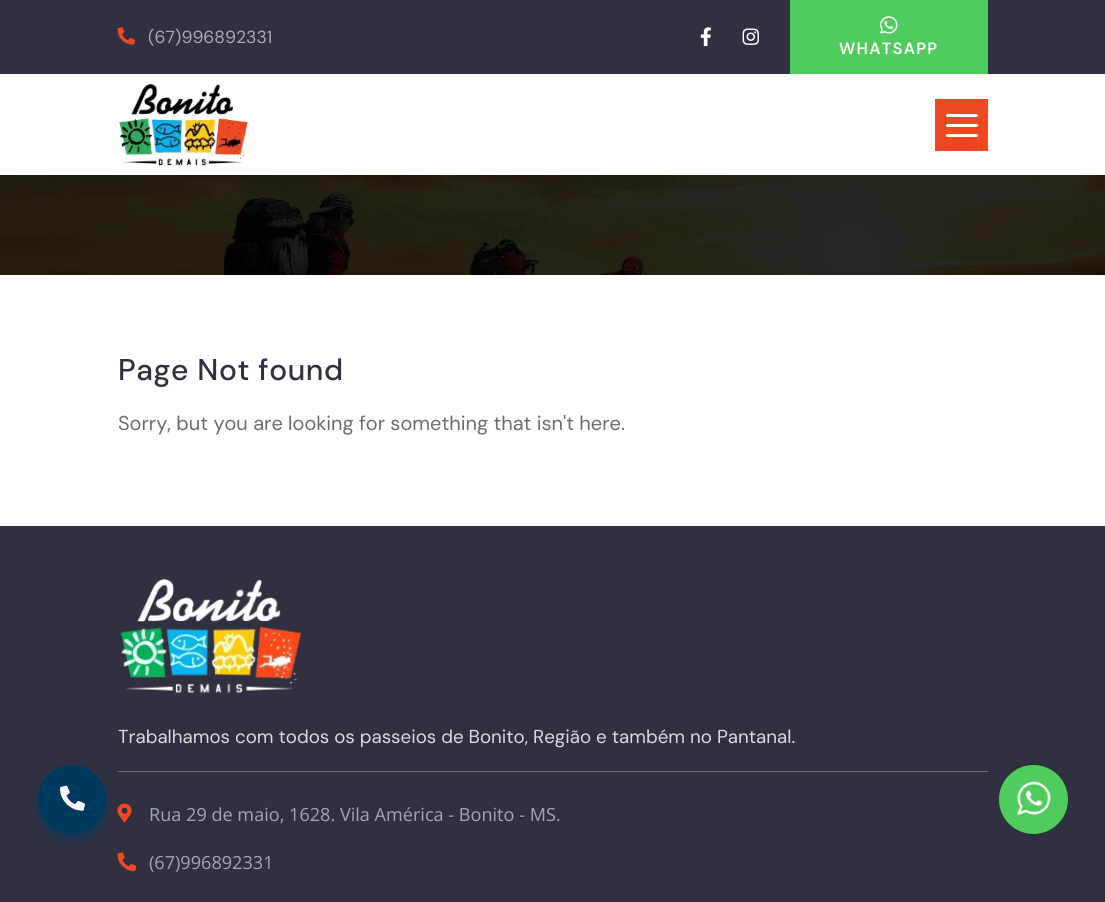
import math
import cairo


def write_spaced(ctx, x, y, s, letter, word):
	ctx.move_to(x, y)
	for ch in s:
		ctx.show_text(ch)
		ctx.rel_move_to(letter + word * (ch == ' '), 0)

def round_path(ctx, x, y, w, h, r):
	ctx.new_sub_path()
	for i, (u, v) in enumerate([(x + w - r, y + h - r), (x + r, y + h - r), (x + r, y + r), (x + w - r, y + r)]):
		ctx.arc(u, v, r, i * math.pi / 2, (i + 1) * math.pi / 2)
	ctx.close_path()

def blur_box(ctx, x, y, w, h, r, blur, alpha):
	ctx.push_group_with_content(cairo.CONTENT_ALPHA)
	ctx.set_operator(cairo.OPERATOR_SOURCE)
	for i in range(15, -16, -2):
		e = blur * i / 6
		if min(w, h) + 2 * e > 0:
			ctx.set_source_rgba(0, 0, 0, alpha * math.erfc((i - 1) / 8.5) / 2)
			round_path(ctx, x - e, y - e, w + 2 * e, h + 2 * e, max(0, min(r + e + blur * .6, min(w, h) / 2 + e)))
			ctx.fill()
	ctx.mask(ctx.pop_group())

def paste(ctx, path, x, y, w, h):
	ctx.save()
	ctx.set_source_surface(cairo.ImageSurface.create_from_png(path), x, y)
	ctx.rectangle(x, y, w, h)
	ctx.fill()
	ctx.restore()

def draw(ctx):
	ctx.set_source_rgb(1, 1, 1)
	ctx.paint()
	ctx.set_source_rgb(0.192, 0.188, 0.255)
	ctx.rectangle(0, 0, 1105, 74)
	ctx.fill()
	paste(ctx, 'media/1.png', 117, 27, 18, 18)
	ctx.select_font_face('DM Sans')
	ctx.set_font_size(17.5)
	ctx.set_source_rgb(0.663, 0.659, 0.714)
	ctx.move_to(148, 43)
	ctx.show_text('(67)996892331')
	paste(ctx, 'media/2.png', 700, 27, 11, 20)
	paste(ctx, 'media/3.png', 742, 28, 17, 17)
	ctx.set_source_rgb(0.31, 0.8, 0.365)
	ctx.rectangle(790, 0, 198, 74)
	ctx.fill()
	paste(ctx, 'media/4.png', 880, 16, 18, 18)
	ctx.select_font_face('DM Sans SemiBold')
	ctx.set_font_size(16.25)
	ctx.set_source_rgb(1, 1, 1)
	write_spaced(ctx, 839, 54, 'WHATSAPP', 1.25, 0)
	paste(ctx, 'media/5.png', 119, 84, 129, 82)
	ctx.set_source_rgb(0.937, 0.286, 0.137)
	ctx.rectangle(935, 99, 53, 52)
	ctx.fill()
	ctx.set_source_rgb(1, 1, 1)
	round_path(ctx, 946, 124, 32, 3, 1.5)
	ctx.fill()
	round_path(ctx, 946, 114, 32, 3, 1.5)
	ctx.fill()
	round_path(ctx, 946, 134, 32, 3, 1.5)
	ctx.fill()
	paste(ctx, 'media/6.png', 0, 175, 1105, 100)
	ctx.select_font_face('DM Sans Medium')
	ctx.set_font_size(30)
	ctx.set_source_rgb(0.192, 0.188, 0.255)
	write_spaced(ctx, 118, 380, 'Page Not found', 0.6, 0)
	ctx.select_font_face('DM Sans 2')
	ctx.set_font_size(20)
	ctx.set_source_rgb(0.427, 0.424, 0.447)
	ctx.move_to(118, 430)
	ctx.show_text('Sorry, but you are looking for something that isn\'t here.')
	ctx.set_source_rgb(0.192, 0.188, 0.255)
	ctx.rectangle(0, 526, 1105, 376)
	ctx.fill()
	ctx.set_source_rgb(0, 0.224, 0.369)
	blur_box(ctx, 38, 770, 68, 69, 34, 3, 0.35)
	ctx.set_source_rgb(0.439, 0.439, 0.439)
	ctx.rectangle(118, 771, 870, 1)
	ctx.fill()
	paste(ctx, 'media/9.png', 117, 803, 15, 20)
	paste(ctx, 'media/10.png', 117, 852, 20, 20)
	ctx.set_source_rgb(0, 0.224, 0.369)
	blur_box(ctx, 38, 773, 68, 68, 34, 5.5, 0.42)
	ctx.set_source_rgb(0, 0.224, 0.369)
	round_path(ctx, 38, 765, 68, 69, 34)
	ctx.fill()
	paste(ctx, 'media/7.png', 60, 785, 25, 26)
	paste(ctx, 'media/8.png', 120, 579, 182, 115)
	ctx.select_font_face('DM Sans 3')
	ctx.set_font_size(18.75)
	ctx.set_source_rgb(0.859, 0.859, 0.859)
	ctx.move_to(118, 743)
	ctx.show_text('Trabalhamos com todos os passeios de Bonito, Região e também no Pantanal.')
	ctx.select_font_face('Open Sans')
	ctx.set_font_size(18.1)
	ctx.set_source_rgb(0.616, 0.655, 0.718)
	ctx.move_to(149, 821)
	ctx.show_text('Rua 29 de maio, 1628. Vila América - Bonito - MS.')
	ctx.move_to(149, 869)
	ctx.show_text('(67)996892331')
	ctx.set_source_rgb(0.31, 0.8, 0.365)
	ctx.new_path()
	ctx.arc(1033.5, 799.5, 34.5, 0, 2 * math.pi)
	ctx.fill()
	paste(ctx, 'media/11.png', 1016, 781, 35, 35)


surface = cairo.ImageSurface(cairo.FORMAT_RGB24, 1105, 902)
ctx = cairo.Context(surface)
options = cairo.FontOptions()
options.set_hint_metrics(cairo.HINT_METRICS_OFF)
options.set_hint_style(cairo.HINT_STYLE_NONE)
ctx.set_font_options(options)
ctx.set_miter_limit(4)
draw(ctx)
surface.write_to_png('image.png')
